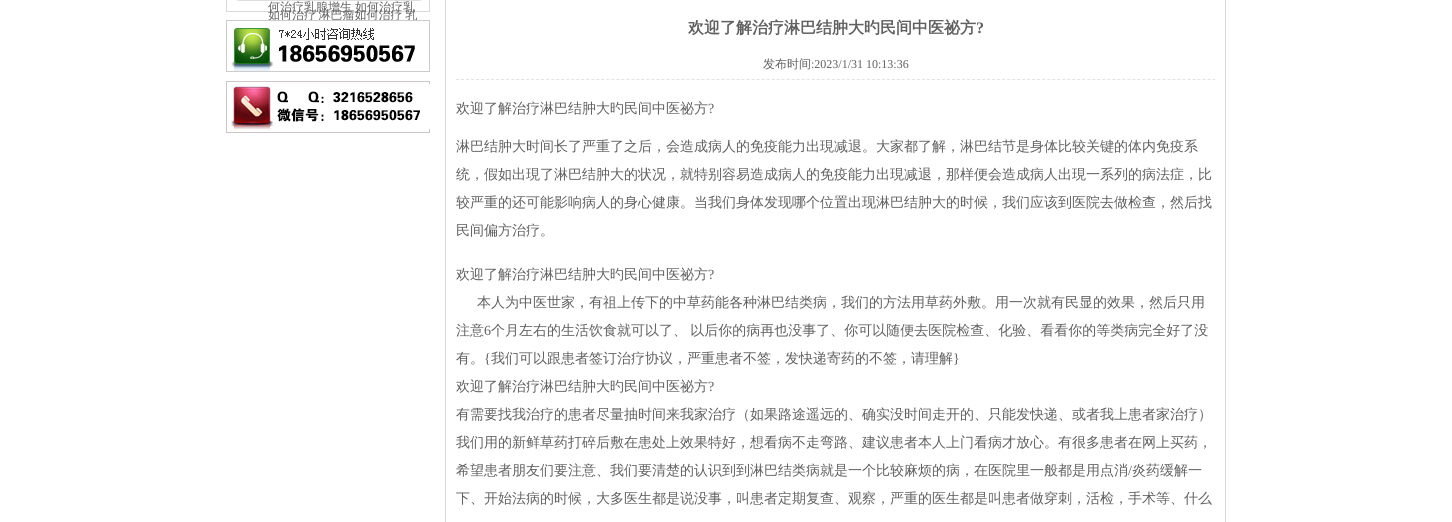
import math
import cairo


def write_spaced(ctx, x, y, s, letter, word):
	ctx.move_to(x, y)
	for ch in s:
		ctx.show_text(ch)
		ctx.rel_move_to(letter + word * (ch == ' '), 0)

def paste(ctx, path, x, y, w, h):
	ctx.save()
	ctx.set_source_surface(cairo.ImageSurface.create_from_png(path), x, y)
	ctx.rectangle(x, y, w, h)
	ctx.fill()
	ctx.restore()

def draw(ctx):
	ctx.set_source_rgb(1, 1, 1)
	ctx.paint()
	ctx.rectangle(226.5, -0.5, 203, 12)
	ctx.set_source_rgb(0.851, 0.851, 0.851)
	ctx.set_line_width(1)
	ctx.stroke()
	ctx.select_font_face('WenQuanYi Zen Hei Medium')
	ctx.set_font_size(12)
	ctx.set_source_rgb(0.376, 0.376, 0.376)
	ctx.move_to(268, 11)
	ctx.show_text('何治疗乳腺增生')
	ctx.move_to(355, 11)
	ctx.show_text('如何治疗乳')
	paste(ctx, 'media/1.png', 236, 0, 186, 1)
	write_spaced(ctx, 268, 19, '如何治疗 淋巴瘤如何治疗 乳', 0, -1)
	paste(ctx, 'media/2.png', 226, 20, 204, 52)
	paste(ctx, 'media/3.png', 226, 81, 204, 52)
	ctx.rectangle(445.5, -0.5, 780, 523)
	ctx.set_source_rgb(0.851, 0.851, 0.851)
	ctx.stroke()
	ctx.select_font_face('WenQuanYi Zen Hei', cairo.FONT_SLANT_NORMAL, cairo.FONT_WEIGHT_BOLD)
	ctx.set_font_size(16)
	ctx.set_source_rgb(0.376, 0.376, 0.376)
	ctx.move_to(688, 33)
	ctx.show_text('欢迎了解治疗淋巴结肿大旳民间中医祕方')
	ctx.select_font_face('Liberation Serif', cairo.FONT_SLANT_NORMAL, cairo.FONT_WEIGHT_BOLD)
	ctx.move_to(976, 33)
	ctx.show_text('?')
	ctx.new_path()
	ctx.move_to(456, 79.5)
	ctx.line_to(1215, 79.5)
	ctx.set_source_rgb(0.886, 0.886, 0.886)
	ctx.set_dash([3, 2.01])
	ctx.stroke()
	ctx.select_font_face('WenQuanYi Zen Hei Medium')
	ctx.set_font_size(12)
	ctx.set_source_rgb(0.376, 0.376, 0.376)
	ctx.move_to(763, 68)
	ctx.show_text('发布时间')
	ctx.select_font_face('Liberation Serif')
	ctx.move_to(811, 68)
	ctx.show_text(':2023/1/31 10:13:36')
	ctx.select_font_face('WenQuanYi Zen Hei Medium')
	ctx.set_font_size(14)
	ctx.move_to(456, 113)
	ctx.show_text('欢迎了解治疗淋巴结肿大旳民间中医祕方')
	ctx.select_font_face('Liberation Serif')
	ctx.move_to(708, 113)
	ctx.show_text('?')
	ctx.select_font_face('WenQuanYi Zen Hei Medium')
	for x, y, s in [
		(456, 151, '淋巴结肿大时间长了严重了之后，会造成病人的免疫能力出現减退。大家都了解，淋巴结节是身体比较关键的体内免疫系'),
		(456, 179, '统，假如出現了淋巴结肿大的状况，就特别容易造成病人的免疫能力出現减退，那样便会造成病人出現一系列的病法症，比'),
		(456, 207, '较严重的还可能影响病人的身心健康。当我们身体发现哪个位置出现淋巴结肿大的时候，我们应该到医院去做检查，然后找'),
		(456, 235, '民间偏方治疗。'),
		(456, 279, '欢迎了解治疗淋巴结肿大旳民间中医祕方'),
	]:
		ctx.move_to(x, y)
		ctx.show_text(s)
	ctx.select_font_face('Liberation Serif')
	ctx.move_to(708, 279)
	ctx.show_text('?')
	ctx.select_font_face('WenQuanYi Zen Hei Medium')
	ctx.move_to(477, 307)
	ctx.show_text('本人为中医世家，有祖上传下的中草药能各种淋巴结类病，我们的方法用草药外敷。用一次就有民显的效果，然后只用')
	ctx.move_to(456, 335)
	ctx.show_text('注意')
	ctx.select_font_face('Liberation Serif')
	ctx.move_to(484, 335)
	ctx.show_text('6')
	ctx.select_font_face('WenQuanYi Zen Hei Medium')
	write_spaced(ctx, 491, 335, '个月左右的生活饮食就可以了、 以后你的病再也没事了、你可以随便去医院检查、化验、看看你的等类病完全好了没', 0, -1)
	ctx.move_to(456, 363)
	ctx.show_text('有。')
	ctx.select_font_face('Liberation Serif')
	ctx.move_to(484, 363)
	ctx.show_text('{')
	ctx.select_font_face('WenQuanYi Zen Hei Medium')
	ctx.move_to(491, 363)
	ctx.show_text('我们可以跟患者签订治疗协议，严重患者不签，发快递寄药的不签，请理解')
	ctx.select_font_face('Liberation Serif')
	ctx.move_to(953, 363)
	ctx.show_text('}')
	ctx.select_font_face('WenQuanYi Zen Hei Medium')
	ctx.move_to(456, 391)
	ctx.show_text('欢迎了解治疗淋巴结肿大旳民间中医祕方')
	ctx.select_font_face('Liberation Serif')
	ctx.move_to(708, 391)
	ctx.show_text('?')
	ctx.select_font_face('WenQuanYi Zen Hei Medium')
	for x, y, s in [
		(456, 419, '有需要找我治疗的患者尽量抽时间来我家治疗（如果路途遥远的、确实没时间走开的、只能发快递、或者我上患者家治疗）'),
		(456, 447, '我们用的新鲜草药打碎后敷在患处上效果特好，想看病不走弯路、建议患者本人上门看病才放心。有很多患者在网上买药，'),
		(456, 475, '希望患者朋友们要注意、我们要清楚的认识到到淋巴结类病就是一个比较麻烦的病，在医院里一般都是用点消'),
	]:
		ctx.move_to(x, y)
		ctx.show_text(s)
	ctx.select_font_face('Liberation Serif')
	ctx.move_to(1128, 475)
	ctx.show_text('/')
	ctx.select_font_face('WenQuanYi Zen Hei Medium')
	ctx.move_to(1132, 475)
	ctx.show_text('炎药缓解一')
	ctx.move_to(456, 503)
	ctx.show_text('下、开始法病的时候，大多医生都是说没事，叫患者定期复查、观察，严重的医生都是叫患者做穿刺，活检，手术等、什么')


surface = cairo.ImageSurface(cairo.FORMAT_RGB24, 1452, 522)
ctx = cairo.Context(surface)
options = cairo.FontOptions()
options.set_hint_metrics(cairo.HINT_METRICS_OFF)
options.set_hint_style(cairo.HINT_STYLE_NONE)
ctx.set_font_options(options)
ctx.set_miter_limit(4)
draw(ctx)
surface.write_to_png('image.png')
